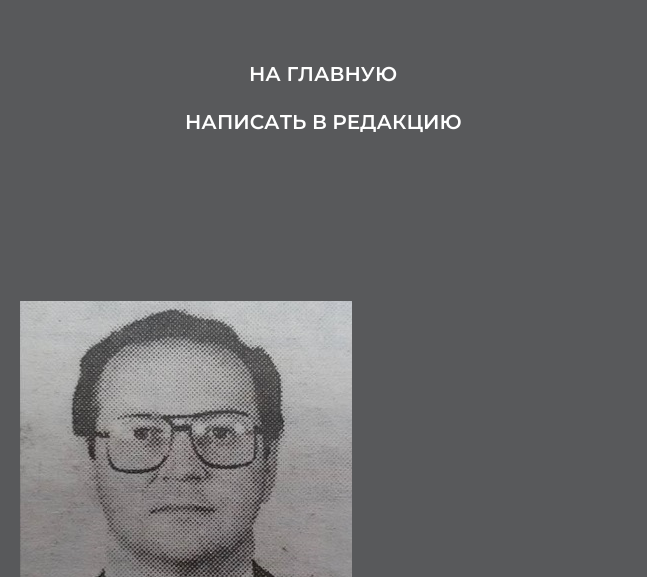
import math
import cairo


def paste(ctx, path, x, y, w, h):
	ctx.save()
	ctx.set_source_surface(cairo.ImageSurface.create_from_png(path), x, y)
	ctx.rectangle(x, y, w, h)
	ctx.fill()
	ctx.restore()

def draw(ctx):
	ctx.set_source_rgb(0.345, 0.349, 0.357)
	ctx.paint()
	ctx.select_font_face('Montserrat SemiBold')
	ctx.set_font_size(20)
	ctx.set_source_rgb(1, 1, 1)
	ctx.move_to(249, 81)
	ctx.show_text('НА ГЛАВНУЮ')
	ctx.move_to(185, 129)
	ctx.show_text('НАПИСАТЬ В РЕДАКЦИЮ')
	paste(ctx, 'media/1.png', 20, 301, 332, 276)


surface = cairo.ImageSurface(cairo.FORMAT_RGB24, 647, 577)
ctx = cairo.Context(surface)
options = cairo.FontOptions()
options.set_hint_metrics(cairo.HINT_METRICS_OFF)
options.set_hint_style(cairo.HINT_STYLE_NONE)
ctx.set_font_options(options)
ctx.set_miter_limit(4)
draw(ctx)
surface.write_to_png('image.png')
